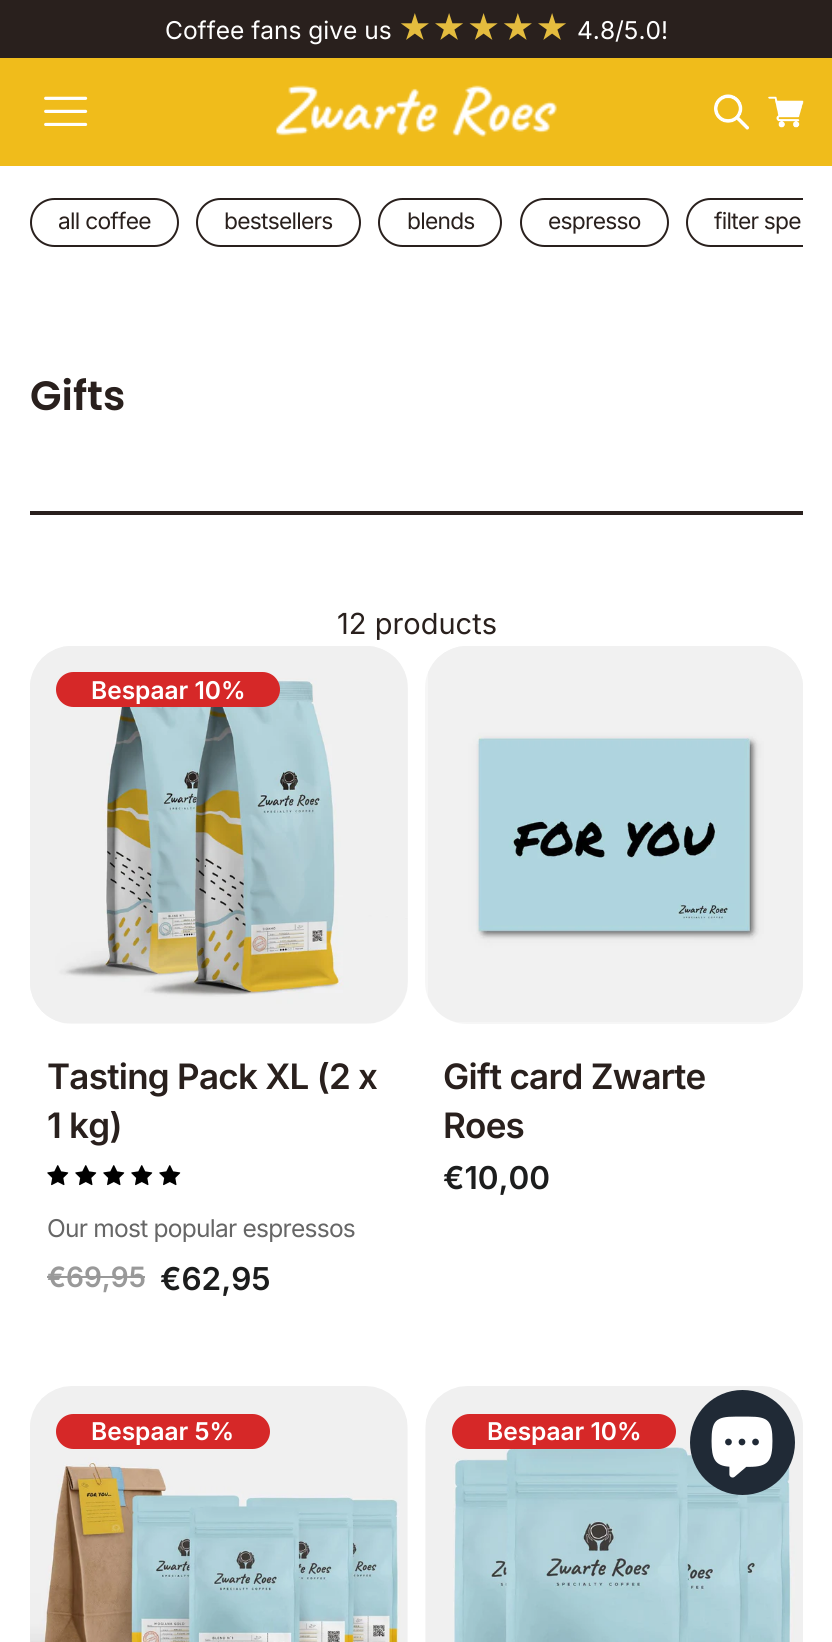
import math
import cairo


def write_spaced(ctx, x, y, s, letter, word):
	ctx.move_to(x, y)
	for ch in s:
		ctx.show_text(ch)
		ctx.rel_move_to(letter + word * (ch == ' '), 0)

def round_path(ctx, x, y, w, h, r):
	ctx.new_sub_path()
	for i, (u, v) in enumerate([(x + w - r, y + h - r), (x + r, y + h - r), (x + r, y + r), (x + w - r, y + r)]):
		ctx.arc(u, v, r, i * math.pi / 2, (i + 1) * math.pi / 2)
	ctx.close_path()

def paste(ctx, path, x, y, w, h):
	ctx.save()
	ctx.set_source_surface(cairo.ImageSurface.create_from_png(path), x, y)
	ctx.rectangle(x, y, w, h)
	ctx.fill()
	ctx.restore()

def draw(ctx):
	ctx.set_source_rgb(1, 1, 1)
	ctx.paint()
	ctx.set_source_rgb(0.161, 0.125, 0.114)
	ctx.rectangle(0, 0, 832, 58)
	ctx.fill()
	ctx.select_font_face('Inter')
	ctx.set_font_size(24.5)
	ctx.set_source_rgb(1, 1, 1)
	ctx.move_to(165, 39)
	ctx.show_text('Coffee fans give us')
	ctx.select_font_face('Inter', cairo.FONT_SLANT_NORMAL, cairo.FONT_WEIGHT_BOLD)
	ctx.set_font_size(29.5)
	ctx.set_source_rgb(0.894, 0.737, 0.243)
	write_spaced(ctx, 399, 39, '★★★★★', 3.5, 0)
	ctx.select_font_face('Inter')
	ctx.set_font_size(24.5)
	ctx.set_source_rgb(1, 1, 1)
	ctx.move_to(577, 39)
	ctx.show_text('4.8/5.0!')
	ctx.set_source_rgb(0.941, 0.737, 0.106)
	ctx.rectangle(0, 58, 832, 108)
	ctx.fill()
	paste(ctx, 'media/1.png', 44, 96, 44, 30)
	paste(ctx, 'media/2.png', 276, 85, 281, 52)
	paste(ctx, 'media/3.png', 714, 94, 35, 36)
	paste(ctx, 'media/4.png', 768, 96, 36, 32)
	round_path(ctx, 31, 199, 147, 47, 23.5)
	ctx.set_source_rgb(0.161, 0.125, 0.114)
	ctx.stroke()
	ctx.set_font_size(22.75)
	write_spaced(ctx, 58, 229, 'all coffee', -0.75, 0)
	round_path(ctx, 197, 199, 163, 47, 23.5)
	ctx.stroke()
	write_spaced(ctx, 224, 229, 'bestsellers', -0.75, 0)
	round_path(ctx, 379, 199, 122, 47, 23.5)
	ctx.stroke()
	write_spaced(ctx, 407, 229, 'blends', -0.75, 0)
	round_path(ctx, 521, 199, 147, 47, 23.5)
	ctx.stroke()
	write_spaced(ctx, 548, 229, 'espresso', -0.75, 0)
	ctx.save()
	ctx.rectangle(30, 198, 773, 66)
	ctx.clip()
	round_path(ctx, 687, 199, 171, 47, 23.5)
	ctx.stroke()
	ctx.restore()
	write_spaced(ctx, 714, 229, 'filter spe', -0.75, 0)
	ctx.rectangle(30, 511, 773, 4)
	ctx.fill()
	ctx.select_font_face('Poppins SemiBold')
	ctx.set_font_size(41)
	ctx.move_to(30, 410)
	ctx.show_text('Gifts')
	ctx.select_font_face('Inter')
	ctx.set_font_size(29)
	ctx.move_to(337, 634)
	ctx.show_text('12 products')
	ctx.set_source_rgb(0.961, 0.961, 0.961)
	round_path(ctx, 30, 646, 378, 378, 42)
	ctx.fill()
	paste(ctx, 'media/5.png', 30, 646, 378, 377)
	ctx.set_source_rgb(0.839, 0.157, 0.157)
	round_path(ctx, 56, 672, 224, 35, 17.5)
	ctx.fill()
	ctx.select_font_face('Inter SemiBold')
	ctx.set_font_size(24.5)
	ctx.set_source_rgb(1, 1, 1)
	ctx.move_to(91, 699)
	ctx.show_text('Bespaar 10%')
	ctx.set_font_size(35)
	ctx.set_source_rgb(0.161, 0.125, 0.114)
	write_spaced(ctx, 47, 1089, 'Tasting Pack XL (2 x', -0.75, 0)
	write_spaced(ctx, 47, 1138, '1 kg)', -0.75, 0)
	paste(ctx, 'media/6.png', 47, 1165, 22, 21)
	paste(ctx, 'media/6.png', 75, 1165, 22, 21)
	paste(ctx, 'media/6.png', 103, 1165, 22, 21)
	paste(ctx, 'media/6.png', 131, 1165, 22, 21)
	paste(ctx, 'media/6.png', 159, 1165, 22, 21)
	ctx.select_font_face('Inter')
	ctx.set_font_size(24.5)
	ctx.set_source_rgb(0.4, 0.4, 0.4)
	write_spaced(ctx, 47, 1237, 'Our most popular espressos', -0.75, 0)
	ctx.select_font_face('Inter SemiBold')
	ctx.set_font_size(28)
	ctx.set_source_rgb(0.6, 0.6, 0.6)
	ctx.move_to(47, 1287)
	ctx.show_text('€69,95')
	ctx.rectangle(47, 1276, 98, 2)
	ctx.fill()
	ctx.set_font_size(31.5)
	ctx.set_source_rgb(0.11, 0.114, 0.114)
	ctx.move_to(160, 1290)
	ctx.show_text('€62,95')
	ctx.set_source_rgb(0.961, 0.961, 0.961)
	round_path(ctx, 425, 646, 378, 378, 42)
	ctx.fill()
	paste(ctx, 'media/7.png', 428, 646, 375, 376)
	ctx.set_font_size(35)
	ctx.set_source_rgb(0.161, 0.125, 0.114)
	write_spaced(ctx, 443, 1089, 'Gift card Zwarte', -0.75, 0)
	write_spaced(ctx, 443, 1138, 'Roes', -0.75, 0)
	ctx.set_font_size(31.5)
	ctx.set_source_rgb(0.11, 0.114, 0.114)
	ctx.move_to(443, 1189)
	ctx.show_text('€10,00')
	ctx.set_source_rgb(0.961, 0.961, 0.961)
	round_path(ctx, 30, 1388, 378, 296, 42)
	ctx.fill()
	paste(ctx, 'media/8.png', 30, 1386, 377, 256)
	ctx.set_source_rgb(0.839, 0.157, 0.157)
	round_path(ctx, 56, 1414, 214, 35, 17.5)
	ctx.fill()
	ctx.set_font_size(24.5)
	ctx.set_source_rgb(1, 1, 1)
	ctx.move_to(91, 1440)
	ctx.show_text('Bespaar 5%')
	ctx.set_source_rgb(0.961, 0.961, 0.961)
	round_path(ctx, 425, 1388, 378, 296, 42)
	ctx.fill()
	paste(ctx, 'media/9.png', 426, 1386, 377, 256)
	ctx.set_source_rgb(0.839, 0.157, 0.157)
	round_path(ctx, 452, 1414, 224, 35, 17.5)
	ctx.fill()
	ctx.set_source_rgb(1, 1, 1)
	ctx.move_to(487, 1440)
	ctx.show_text('Bespaar 10%')
	ctx.set_source_rgb(0.125, 0.165, 0.212)
	ctx.new_path()
	ctx.arc(742.5, 1442.5, 52.5, 0, 2 * math.pi)
	ctx.fill()
	paste(ctx, 'media/10.png', 711, 1416, 62, 62)


surface = cairo.ImageSurface(cairo.FORMAT_RGB24, 832, 1642)
ctx = cairo.Context(surface)
options = cairo.FontOptions()
options.set_hint_metrics(cairo.HINT_METRICS_OFF)
options.set_hint_style(cairo.HINT_STYLE_NONE)
ctx.set_font_options(options)
ctx.set_miter_limit(4)
draw(ctx)
surface.write_to_png('image.png')
